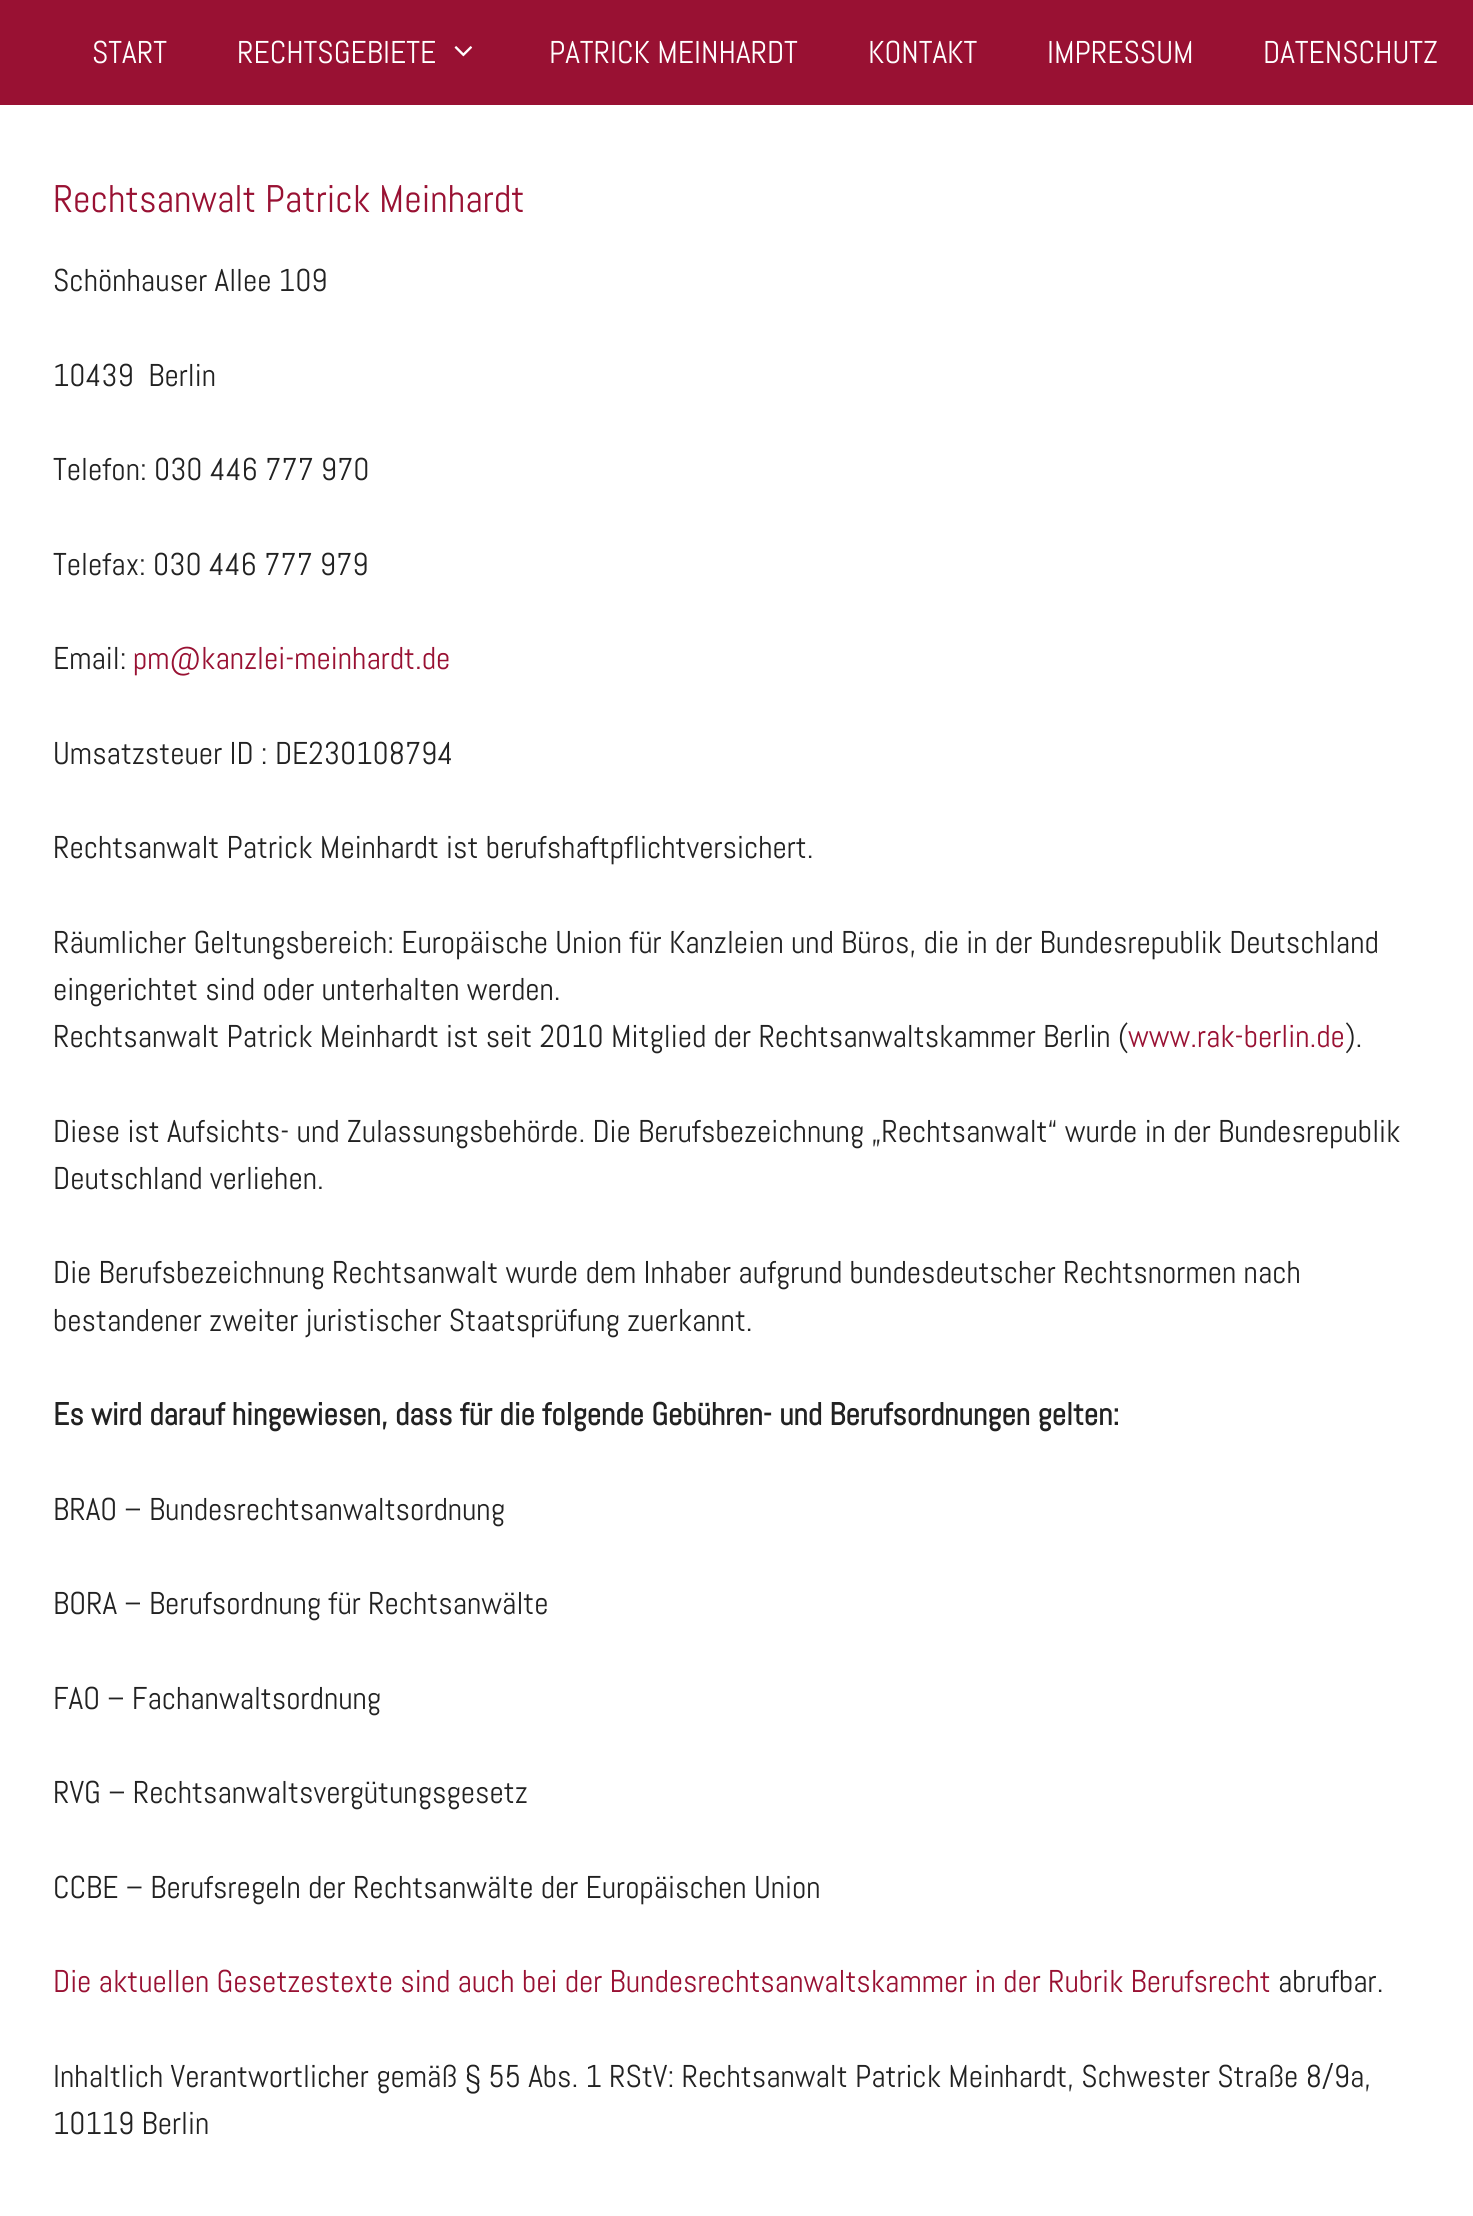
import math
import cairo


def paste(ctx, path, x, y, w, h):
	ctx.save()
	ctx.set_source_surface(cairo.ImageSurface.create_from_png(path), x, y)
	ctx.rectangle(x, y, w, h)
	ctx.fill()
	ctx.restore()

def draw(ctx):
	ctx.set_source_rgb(1, 1, 1)
	ctx.paint()
	ctx.set_source_rgb(0.6, 0.067, 0.2)
	ctx.rectangle(0, 0, 1473, 105)
	ctx.fill()
	ctx.select_font_face('Abel')
	ctx.set_font_size(31.5)
	ctx.set_source_rgb(1, 1, 1)
	ctx.move_to(92, 63)
	ctx.show_text('START')
	ctx.move_to(237, 63)
	ctx.show_text('RECHTSGEBIETE')
	paste(ctx, 'media/1.png', 454, 46, 19, 11)
	for x, y, s in [
		(549, 63, 'PATRICK MEINHARDT'),
		(868, 63, 'KONTAKT'),
		(1047, 63, 'IMPRESSUM'),
		(1263, 63, 'DATENSCHUTZ'),
	]:
		ctx.move_to(x, y)
		ctx.show_text(s)
	ctx.set_font_size(38.5)
	ctx.set_source_rgb(0.6, 0.067, 0.2)
	ctx.move_to(53, 212)
	ctx.show_text('Rechtsanwalt Patrick Meinhardt')
	ctx.set_font_size(31.5)
	ctx.set_source_rgb(0.133, 0.133, 0.133)
	for x, y, s in [
		(53, 291, 'Schönhauser Allee 109'),
		(53, 386, '10439  Berlin'),
		(53, 480, 'Telefon: 030 446 777 970'),
		(53, 575, 'Telefax: 030 446 777 979'),
		(53, 669, 'Email:'),
	]:
		ctx.move_to(x, y)
		ctx.show_text(s)
	ctx.set_source_rgb(0.6, 0.067, 0.2)
	ctx.move_to(133, 669)
	ctx.show_text('pm@kanzlei-meinhardt.de')
	ctx.set_source_rgb(0.133, 0.133, 0.133)
	for x, y, s in [
		(53, 764, 'Umsatzsteuer ID : DE230108794'),
		(53, 858, 'Rechtsanwalt Patrick Meinhardt ist berufshaftpflichtversichert.'),
		(53, 953, 'Räumlicher Geltungsbereich: Europäische Union für Kanzleien und Büros, die in der Bundesrepublik Deutschland'),
		(53, 1000, 'eingerichtet sind oder unterhalten werden.'),
		(53, 1047, 'Rechtsanwalt Patrick Meinhardt ist seit 2010 Mitglied der Rechtsanwaltskammer Berlin ('),
	]:
		ctx.move_to(x, y)
		ctx.show_text(s)
	ctx.set_source_rgb(0.6, 0.067, 0.2)
	ctx.move_to(1128, 1047)
	ctx.show_text('www.rak-berlin.de')
	ctx.set_source_rgb(0.133, 0.133, 0.133)
	for x, y, s in [
		(1345, 1047, ').'),
		(53, 1142, 'Diese ist Aufsichts- und Zulassungsbehörde. Die Berufsbezeichnung „Rechtsanwalt“ wurde in der Bundesrepublik'),
		(53, 1189, 'Deutschland verliehen.'),
		(53, 1283, 'Die Berufsbezeichnung Rechtsanwalt wurde dem Inhaber aufgrund bundesdeutscher Rechtsnormen nach'),
		(53, 1331, 'bestandener zweiter juristischer Staatsprüfung zuerkannt.'),
	]:
		ctx.move_to(x, y)
		ctx.show_text(s)
	ctx.select_font_face('Abel', cairo.FONT_SLANT_NORMAL, cairo.FONT_WEIGHT_BOLD)
	ctx.move_to(53, 1425)
	ctx.show_text('Es wird darauf hingewiesen, dass für die folgende Gebühren- und Berufsordnungen gelten:')
	ctx.select_font_face('Abel')
	for x, y, s in [
		(53, 1520, 'BRAO – Bundesrechtsanwaltsordnung'),
		(53, 1614, 'BORA – Berufsordnung für Rechtsanwälte'),
		(53, 1709, 'FAO – Fachanwaltsordnung'),
		(53, 1803, 'RVG – Rechtsanwaltsvergütungsgesetz'),
		(53, 1898, 'CCBE – Berufsregeln der Rechtsanwälte der Europäischen Union'),
	]:
		ctx.move_to(x, y)
		ctx.show_text(s)
	ctx.set_source_rgb(0.6, 0.067, 0.2)
	ctx.move_to(53, 1992)
	ctx.show_text('Die aktuellen Gesetzestexte sind auch bei der Bundesrechtsanwaltskammer in der Rubrik Berufsrecht')
	ctx.set_source_rgb(0.133, 0.133, 0.133)
	for x, y, s in [
		(1278, 1992, 'abrufbar.'),
		(53, 2087, 'Inhaltlich Verantwortlicher gemäß § 55 Abs. 1 RStV: Rechtsanwalt Patrick Meinhardt, Schwester Straße 8/9a,'),
		(53, 2134, '10119 Berlin'),
	]:
		ctx.move_to(x, y)
		ctx.show_text(s)


surface = cairo.ImageSurface(cairo.FORMAT_RGB24, 1473, 2216)
ctx = cairo.Context(surface)
options = cairo.FontOptions()
options.set_hint_metrics(cairo.HINT_METRICS_OFF)
options.set_hint_style(cairo.HINT_STYLE_NONE)
ctx.set_font_options(options)
ctx.set_miter_limit(4)
draw(ctx)
surface.write_to_png('image.png')
